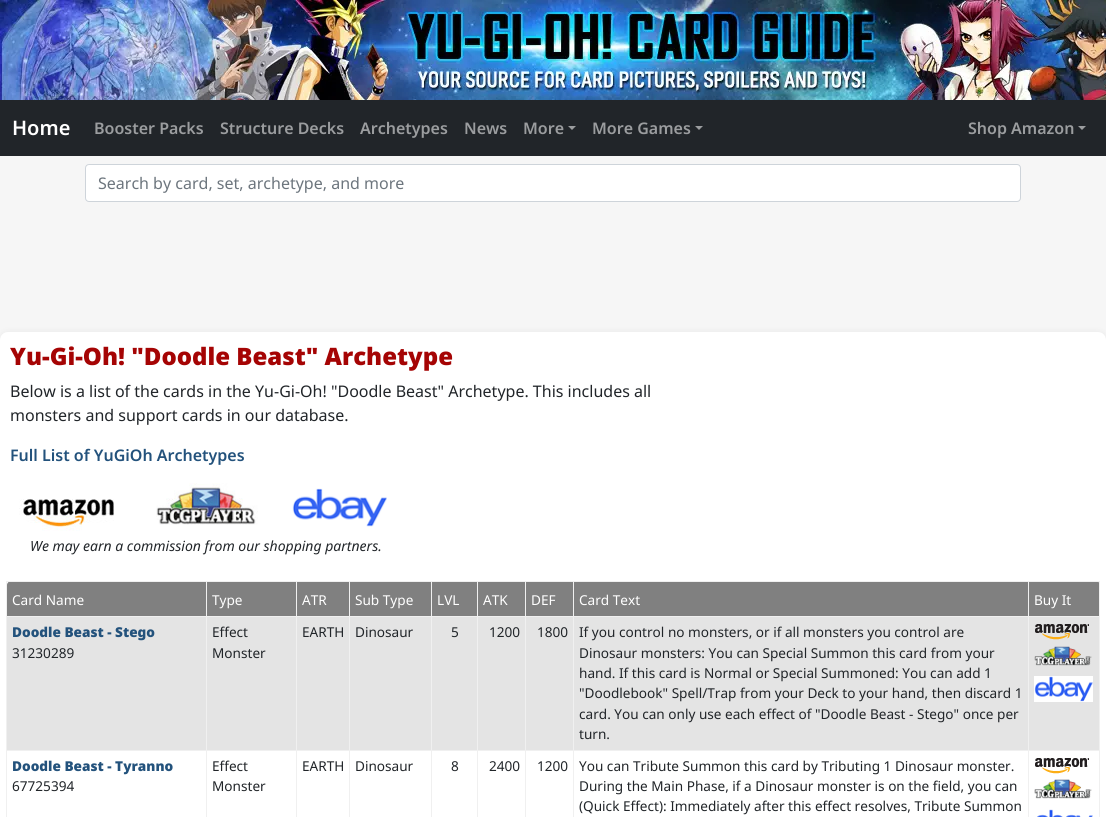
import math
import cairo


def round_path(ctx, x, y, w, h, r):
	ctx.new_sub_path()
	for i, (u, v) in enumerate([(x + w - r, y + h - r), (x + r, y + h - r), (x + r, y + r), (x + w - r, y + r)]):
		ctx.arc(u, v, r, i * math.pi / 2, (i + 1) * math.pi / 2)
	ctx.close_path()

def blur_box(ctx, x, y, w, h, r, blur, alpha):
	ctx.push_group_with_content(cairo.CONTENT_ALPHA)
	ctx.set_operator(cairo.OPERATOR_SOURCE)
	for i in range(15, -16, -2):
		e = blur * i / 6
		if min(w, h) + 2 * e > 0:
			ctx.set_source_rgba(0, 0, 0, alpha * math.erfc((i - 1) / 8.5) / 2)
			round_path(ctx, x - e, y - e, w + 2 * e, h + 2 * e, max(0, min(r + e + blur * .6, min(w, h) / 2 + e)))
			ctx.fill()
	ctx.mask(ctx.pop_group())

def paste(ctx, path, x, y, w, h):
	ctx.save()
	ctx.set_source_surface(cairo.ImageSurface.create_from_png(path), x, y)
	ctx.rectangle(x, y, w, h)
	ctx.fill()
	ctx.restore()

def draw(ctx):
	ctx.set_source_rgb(0.961, 0.961, 0.961)
	ctx.paint()
	paste(ctx, 'media/1.png', 0, 0, 1106, 100)
	ctx.set_source_rgb(0.129, 0.145, 0.161)
	ctx.rectangle(0, 100, 1106, 56)
	ctx.fill()
	ctx.select_font_face('Noto Sans SemiBold')
	ctx.set_font_size(20)
	ctx.set_source_rgb(1, 1, 1)
	ctx.move_to(12, 135)
	ctx.show_text('Home')
	ctx.set_font_size(16)
	ctx.set_source_rgb(0.608, 0.616, 0.624)
	for x, y, s in [
		(94, 134, 'Booster Packs'),
		(220, 134, 'Structure Decks'),
		(360, 134, 'Archetypes'),
		(464, 134, 'News'),
		(523, 134, 'More'),
	]:
		ctx.move_to(x, y)
		ctx.show_text(s)
	ctx.new_path()
	ctx.move_to(568, 126)
	ctx.line_to(576, 126)
	ctx.line_to(572, 130)
	ctx.close_path()
	ctx.fill()
	ctx.move_to(592, 134)
	ctx.show_text('More Games')
	ctx.new_path()
	ctx.move_to(695, 126)
	ctx.line_to(703, 126)
	ctx.line_to(699, 130)
	ctx.close_path()
	ctx.fill()
	ctx.move_to(968, 134)
	ctx.show_text('Shop Amazon')
	ctx.new_path()
	ctx.move_to(1078, 126)
	ctx.line_to(1086, 126)
	ctx.line_to(1082, 130)
	ctx.close_path()
	ctx.fill()
	ctx.set_source_rgb(1, 1, 1)
	round_path(ctx, 85.5, 164.5, 935, 37, 3.5)
	ctx.fill_preserve()
	ctx.set_source_rgb(0.808, 0.831, 0.855)
	ctx.set_line_width(1)
	ctx.stroke()
	ctx.select_font_face('Noto Sans')
	ctx.set_source_rgb(0.424, 0.459, 0.49)
	ctx.move_to(98, 189)
	ctx.show_text('Search by card, set, archetype, and more')
	ctx.set_source_rgb(0, 0, 0)
	blur_box(ctx, 0, 334, 1106, 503, 8, 4, 0.1)
	ctx.set_source_rgb(1, 1, 1)
	round_path(ctx, 0, 332, 1106, 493, 8)
	ctx.fill()
	ctx.select_font_face('Noto Sans Black')
	ctx.set_font_size(24)
	ctx.set_source_rgb(0.647, 0.016, 0.016)
	ctx.move_to(10, 365)
	ctx.show_text('Yu-Gi-Oh! "Doodle Beast" Archetype')
	ctx.select_font_face('Noto Sans')
	ctx.set_font_size(16)
	ctx.set_source_rgb(0.129, 0.145, 0.161)
	ctx.move_to(10, 397)
	ctx.show_text('Below is a list of the cards in the Yu-Gi-Oh! "Doodle Beast" Archetype. This includes all')
	ctx.move_to(10, 421)
	ctx.show_text('monsters and support cards in our database.')
	ctx.select_font_face('Noto Sans SemiBold')
	ctx.set_source_rgb(0.137, 0.322, 0.486)
	ctx.move_to(10, 461)
	ctx.show_text('Full List of YuGiOh Archetypes')
	paste(ctx, 'media/2.png', 19, 499, 95, 32)
	paste(ctx, 'media/3.png', 156, 483, 102, 42)
	paste(ctx, 'media/4.png', 292, 488, 95, 39)
	ctx.select_font_face('Noto Sans', cairo.FONT_SLANT_ITALIC)
	ctx.set_font_size(14)
	ctx.set_source_rgb(0.129, 0.145, 0.161)
	ctx.move_to(30, 551)
	ctx.show_text('We may earn a commission from our shopping partners.')
	ctx.set_source_rgb(0.502, 0.502, 0.502)
	ctx.new_path()
	ctx.move_to(11, 581)
	ctx.line_to(207, 581)
	ctx.line_to(207, 617)
	ctx.line_to(7, 617)
	ctx.line_to(7, 585)
	ctx.curve_to(7, 583, 9, 581, 11, 581)
	ctx.close_path()
	ctx.fill()
	ctx.new_path()
	ctx.move_to(1029, 581)
	ctx.line_to(1096, 581)
	ctx.curve_to(1098, 581, 1100, 583, 1100, 585)
	ctx.line_to(1100, 617)
	ctx.line_to(1029, 617)
	ctx.close_path()
	ctx.fill()
	ctx.set_source_rgb(0.941, 0.941, 0.941)
	ctx.rectangle(1028, 581, 72, 1)
	ctx.rectangle(1028, 616, 72, 1)
	ctx.fill()
	ctx.set_source_rgb(0.894, 0.894, 0.894)
	ctx.rectangle(7, 617, 1092, 133)
	ctx.fill()
	ctx.set_source_rgb(0.941, 0.941, 0.941)
	ctx.rectangle(1028, 750, 72, 1)
	ctx.rectangle(1028, 750, 1, 67)
	ctx.rectangle(573, 750, 456, 1)
	ctx.rectangle(1028, 616, 1, 135)
	ctx.rectangle(573, 616, 456, 1)
	ctx.rectangle(1028, 581, 1, 36)
	ctx.rectangle(573, 581, 456, 1)
	ctx.rectangle(573, 750, 1, 67)
	ctx.rectangle(525, 750, 49, 1)
	ctx.rectangle(573, 616, 1, 135)
	ctx.rectangle(525, 616, 49, 1)
	ctx.rectangle(573, 581, 1, 36)
	ctx.rectangle(525, 581, 49, 1)
	ctx.rectangle(525, 750, 1, 67)
	ctx.rectangle(477, 750, 49, 1)
	ctx.rectangle(525, 616, 1, 135)
	ctx.rectangle(477, 616, 49, 1)
	ctx.rectangle(525, 581, 1, 36)
	ctx.rectangle(477, 581, 49, 1)
	ctx.rectangle(477, 750, 1, 67)
	ctx.rectangle(431, 750, 47, 1)
	ctx.rectangle(477, 616, 1, 135)
	ctx.rectangle(431, 616, 47, 1)
	ctx.rectangle(477, 581, 1, 36)
	ctx.rectangle(431, 581, 47, 1)
	ctx.rectangle(431, 750, 1, 67)
	ctx.rectangle(349, 750, 83, 1)
	ctx.rectangle(431, 616, 1, 135)
	ctx.rectangle(349, 616, 83, 1)
	ctx.rectangle(431, 581, 1, 36)
	ctx.rectangle(349, 581, 83, 1)
	ctx.rectangle(349, 750, 1, 67)
	ctx.rectangle(296, 750, 54, 1)
	ctx.rectangle(349, 616, 1, 135)
	ctx.rectangle(296, 616, 54, 1)
	ctx.rectangle(349, 581, 1, 36)
	ctx.rectangle(296, 581, 54, 1)
	ctx.rectangle(296, 750, 1, 67)
	ctx.rectangle(206, 750, 91, 1)
	ctx.rectangle(296, 616, 1, 135)
	ctx.rectangle(206, 616, 91, 1)
	ctx.rectangle(296, 581, 1, 36)
	ctx.rectangle(206, 581, 91, 1)
	ctx.rectangle(206, 750, 1, 67)
	ctx.rectangle(6, 750, 201, 1)
	ctx.rectangle(206, 616, 1, 135)
	ctx.rectangle(6, 616, 201, 1)
	ctx.rectangle(206, 581, 1, 36)
	ctx.rectangle(6, 581, 201, 1)
	ctx.rectangle(6, 750, 1, 67)
	ctx.rectangle(6, 616, 1, 135)
	ctx.rectangle(6, 581, 1, 36)
	ctx.fill()
	ctx.select_font_face('Noto Sans')
	ctx.set_font_size(13.6)
	ctx.set_source_rgb(1, 1, 1)
	ctx.move_to(12, 605)
	ctx.show_text('Card Name')
	ctx.set_source_rgb(0.502, 0.502, 0.502)
	ctx.rectangle(207, 582, 89, 34)
	ctx.fill()
	ctx.set_source_rgb(1, 1, 1)
	ctx.move_to(212, 605)
	ctx.show_text('Type')
	ctx.set_source_rgb(0.502, 0.502, 0.502)
	ctx.rectangle(297, 582, 52, 34)
	ctx.fill()
	ctx.set_source_rgb(1, 1, 1)
	ctx.move_to(302, 605)
	ctx.show_text('ATR')
	ctx.set_source_rgb(0.502, 0.502, 0.502)
	ctx.rectangle(350, 582, 81, 34)
	ctx.fill()
	ctx.set_source_rgb(1, 1, 1)
	ctx.move_to(355, 605)
	ctx.show_text('Sub Type')
	ctx.set_source_rgb(0.502, 0.502, 0.502)
	ctx.rectangle(432, 582, 45, 34)
	ctx.fill()
	ctx.set_source_rgb(1, 1, 1)
	ctx.move_to(437, 605)
	ctx.show_text('LVL')
	ctx.set_source_rgb(0.502, 0.502, 0.502)
	ctx.rectangle(478, 582, 47, 34)
	ctx.fill()
	ctx.set_source_rgb(1, 1, 1)
	ctx.move_to(483, 605)
	ctx.show_text('ATK')
	ctx.set_source_rgb(0.502, 0.502, 0.502)
	ctx.rectangle(526, 582, 47, 34)
	ctx.fill()
	ctx.set_source_rgb(1, 1, 1)
	ctx.move_to(531, 605)
	ctx.show_text('DEF')
	ctx.set_source_rgb(0.502, 0.502, 0.502)
	ctx.rectangle(574, 582, 454, 34)
	ctx.fill()
	ctx.set_source_rgb(1, 1, 1)
	ctx.move_to(579, 605)
	ctx.show_text('Card Text')
	ctx.set_source_rgb(0.941, 0.941, 0.941)
	ctx.rectangle(1099, 750, 1, 67)
	ctx.rectangle(1099, 616, 1, 135)
	ctx.rectangle(1099, 581, 1, 36)
	ctx.fill()
	ctx.set_source_rgb(1, 1, 1)
	ctx.move_to(1034, 605)
	ctx.show_text('Buy It')
	ctx.select_font_face('Noto Sans Black')
	ctx.set_source_rgb(0.137, 0.322, 0.486)
	ctx.move_to(12, 637)
	ctx.show_text('Doodle Beast - Stego')
	ctx.select_font_face('Noto Sans')
	ctx.set_source_rgb(0.129, 0.145, 0.161)
	for x, y, s in [
		(12, 658, '31230289'),
		(212, 637, 'Effect'),
		(212, 658, 'Monster'),
		(302, 637, 'EARTH'),
		(355, 637, 'Dinosaur'),
		(451, 637, '5'),
		(489, 637, '1200'),
		(537, 637, '1800'),
		(579, 637, 'If you control no monsters, or if all monsters you control are'),
		(579, 658, 'Dinosaur monsters: You can Special Summon this card from your'),
		(579, 678, 'hand. If this card is Normal or Special Summoned: You can add 1'),
		(579, 698, '"Doodlebook" Spell/Trap from your Deck to your hand, then discard 1'),
		(579, 719, 'card. You can only use each effect of "Doodle Beast - Stego" once per'),
		(579, 739, 'turn.'),
	]:
		ctx.move_to(x, y)
		ctx.show_text(s)
	paste(ctx, 'media/5.png', 1035, 624, 54, 16)
	paste(ctx, 'media/6.png', 1034, 646, 58, 20)
	paste(ctx, 'media/7.png', 1034, 676, 59, 26)
	ctx.select_font_face('Noto Sans Black')
	ctx.set_source_rgb(0.137, 0.322, 0.486)
	ctx.move_to(12, 771)
	ctx.show_text('Doodle Beast - Tyranno')
	ctx.select_font_face('Noto Sans')
	ctx.set_source_rgb(0.129, 0.145, 0.161)
	for x, y, s in [
		(12, 791, '67725394'),
		(212, 771, 'Effect'),
		(212, 791, 'Monster'),
		(302, 771, 'EARTH'),
		(355, 771, 'Dinosaur'),
		(451, 771, '8'),
		(489, 771, '2400'),
		(537, 771, '1200'),
		(579, 771, 'You can Tribute Summon this card by Tributing 1 Dinosaur monster.'),
		(579, 791, 'During the Main Phase, if a Dinosaur monster is on the field, you can'),
		(579, 811, '(Quick Effect): Immediately after this effect resolves, Tribute Summon'),
	]:
		ctx.move_to(x, y)
		ctx.show_text(s)
	paste(ctx, 'media/8.png', 1035, 758, 54, 16)
	paste(ctx, 'media/9.png', 1034, 779, 58, 20)
	paste(ctx, 'media/10.png', 1037, 809, 56, 8)


surface = cairo.ImageSurface(cairo.FORMAT_RGB24, 1106, 817)
ctx = cairo.Context(surface)
options = cairo.FontOptions()
options.set_hint_metrics(cairo.HINT_METRICS_OFF)
options.set_hint_style(cairo.HINT_STYLE_NONE)
ctx.set_font_options(options)
ctx.set_miter_limit(4)
draw(ctx)
surface.write_to_png('image.png')
